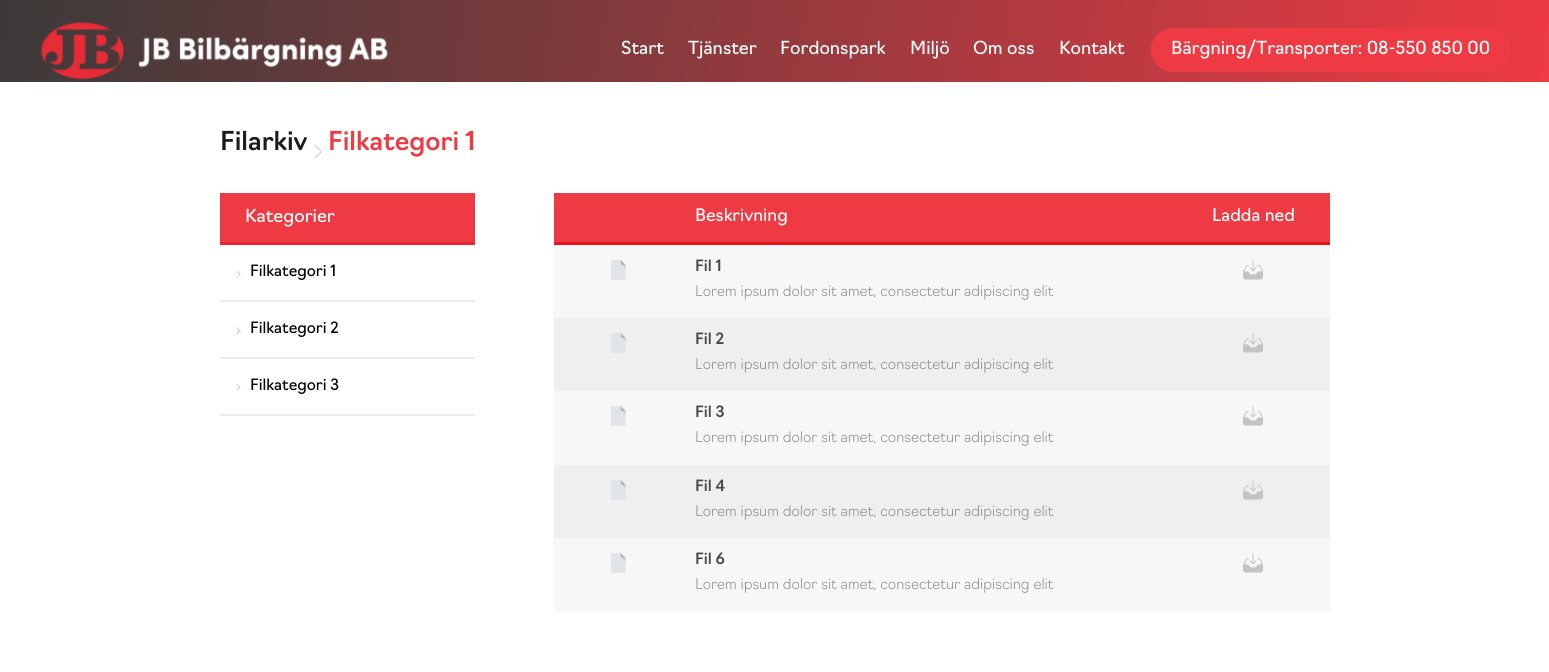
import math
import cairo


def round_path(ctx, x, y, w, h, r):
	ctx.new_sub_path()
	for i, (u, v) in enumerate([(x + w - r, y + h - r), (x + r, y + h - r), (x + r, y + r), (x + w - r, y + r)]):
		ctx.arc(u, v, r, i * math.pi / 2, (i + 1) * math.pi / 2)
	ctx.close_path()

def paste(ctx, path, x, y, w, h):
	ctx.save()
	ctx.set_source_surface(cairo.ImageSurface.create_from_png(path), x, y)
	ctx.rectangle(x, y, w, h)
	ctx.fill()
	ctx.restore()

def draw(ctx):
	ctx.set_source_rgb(1, 1, 1)
	ctx.paint()
	gradient = cairo.LinearGradient(16, -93, 1533, 175)
	gradient.add_color_stop_rgba(0, 0.231, 0.227, 0.224, 1)
	gradient.add_color_stop_rgba(1, 0.933, 0.227, 0.263, 1)
	ctx.set_source(gradient)
	ctx.rectangle(0, 0, 1549, 82)
	ctx.fill()
	paste(ctx, 'media/1.png', 40, 22, 348, 58)
	ctx.select_font_face('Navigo')
	ctx.set_font_size(17.6)
	ctx.set_source_rgb(1, 1, 1)
	for x, y, s in [
		(621, 54, 'Start'),
		(688, 54, 'Tjänster'),
		(780, 54, 'Fordonspark'),
		(910, 54, 'Miljö'),
		(973, 54, 'Om oss'),
		(1059, 54, 'Kontakt'),
	]:
		ctx.move_to(x, y)
		ctx.show_text(s)
	ctx.set_source_rgb(0.933, 0.227, 0.263)
	round_path(ctx, 1151, 28, 359, 44, 22)
	ctx.fill()
	ctx.set_source_rgb(1, 1, 1)
	ctx.move_to(1171, 54)
	ctx.show_text('Bärgning/Transporter: 08-550 850 00')
	ctx.select_font_face('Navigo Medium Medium')
	ctx.set_font_size(25.5)
	ctx.set_source_rgb(0.11, 0.11, 0.11)
	ctx.move_to(220, 150)
	ctx.show_text('Filarkiv')
	ctx.set_source_rgb(0.761, 0.761, 0.761)
	ctx.new_path()
	ctx.move_to(315, 146)
	ctx.line_to(315.5, 145)
	ctx.line_to(322, 151.5)
	ctx.line_to(321.5, 152)
	ctx.close_path()
	ctx.fill()
	ctx.new_path()
	ctx.move_to(315, 157)
	ctx.line_to(321.5, 151)
	ctx.line_to(322, 151.5)
	ctx.line_to(315.5, 158)
	ctx.close_path()
	ctx.fill()
	ctx.set_source_rgb(0.933, 0.227, 0.263)
	ctx.move_to(328, 150)
	ctx.show_text('Filkategori 1')
	ctx.rectangle(220, 193, 255, 49)
	ctx.fill()
	ctx.set_source_rgb(0.925, 0.137, 0.176)
	ctx.rectangle(220, 242, 255, 3)
	ctx.fill()
	ctx.select_font_face('Navigo')
	ctx.set_font_size(17.6)
	ctx.set_source_rgb(1, 1, 1)
	ctx.move_to(245, 222)
	ctx.show_text('Kategorier')
	ctx.set_source_rgb(0.933, 0.918, 0.918)
	ctx.rectangle(220, 300, 255, 2)
	ctx.fill()
	ctx.set_source_rgb(0.761, 0.761, 0.761)
	ctx.new_path()
	ctx.move_to(236.5, 271)
	ctx.line_to(237, 270.5)
	ctx.line_to(240.5, 274)
	ctx.line_to(240, 274.5)
	ctx.close_path()
	ctx.fill()
	ctx.new_path()
	ctx.move_to(236.5, 277)
	ctx.line_to(240, 273.5)
	ctx.line_to(240.5, 274)
	ctx.line_to(237, 277.5)
	ctx.close_path()
	ctx.fill()
	ctx.set_font_size(15.25)
	ctx.set_source_rgb(0, 0, 0)
	ctx.move_to(250, 276)
	ctx.show_text('Filkategori 1')
	ctx.set_source_rgb(0.933, 0.918, 0.918)
	ctx.rectangle(220, 357, 255, 2)
	ctx.fill()
	ctx.set_source_rgb(0.761, 0.761, 0.761)
	ctx.new_path()
	ctx.move_to(236.5, 328)
	ctx.line_to(237, 327)
	ctx.line_to(240.5, 331)
	ctx.line_to(240, 331.5)
	ctx.close_path()
	ctx.fill()
	ctx.new_path()
	ctx.move_to(236.5, 333.5)
	ctx.line_to(240, 330)
	ctx.line_to(240.5, 331)
	ctx.line_to(237, 334.5)
	ctx.close_path()
	ctx.fill()
	ctx.set_source_rgb(0, 0, 0)
	ctx.move_to(250, 333)
	ctx.show_text('Filkategori 2')
	ctx.set_source_rgb(0.933, 0.918, 0.918)
	ctx.rectangle(220, 414, 255, 2)
	ctx.fill()
	ctx.set_source_rgb(0.761, 0.761, 0.761)
	ctx.new_path()
	ctx.move_to(236.5, 384.5)
	ctx.line_to(237, 384)
	ctx.line_to(240.5, 387.5)
	ctx.line_to(240, 388.5)
	ctx.close_path()
	ctx.fill()
	ctx.new_path()
	ctx.move_to(236.5, 390.5)
	ctx.line_to(240, 387)
	ctx.line_to(240.5, 387.5)
	ctx.line_to(237, 391)
	ctx.close_path()
	ctx.fill()
	ctx.set_source_rgb(0, 0, 0)
	ctx.move_to(250, 390)
	ctx.show_text('Filkategori 3')
	ctx.set_source_rgb(0.933, 0.227, 0.263)
	ctx.rectangle(554, 193, 776, 49)
	ctx.fill()
	ctx.set_source_rgb(0.922, 0.078, 0.122)
	ctx.rectangle(554, 242, 776, 3)
	ctx.fill()
	ctx.set_font_size(17)
	ctx.set_source_rgb(1, 1, 1)
	ctx.move_to(695, 221)
	ctx.show_text('Beskrivning')
	ctx.move_to(1212, 221)
	ctx.show_text('Ladda ned')
	ctx.set_source_rgb(0.965, 0.965, 0.965)
	ctx.rectangle(554, 245, 776, 73)
	ctx.fill()
	paste(ctx, 'media/2.png', 610, 260, 16, 20)
	ctx.select_font_face('Navigo Medium Medium')
	ctx.set_font_size(15.25)
	ctx.set_source_rgb(0.282, 0.282, 0.282)
	ctx.move_to(695, 271)
	ctx.show_text('Fil 1')
	ctx.select_font_face('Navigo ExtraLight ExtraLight')
	ctx.set_font_size(14.4)
	ctx.set_source_rgb(0.514, 0.514, 0.514)
	ctx.move_to(695, 296)
	ctx.show_text('Lorem ipsum dolor sit amet, consectetur adipiscing elit')
	paste(ctx, 'media/3.png', 1243, 260, 20, 20)
	ctx.set_source_rgb(0.937, 0.937, 0.937)
	ctx.rectangle(554, 318, 776, 73)
	ctx.fill()
	paste(ctx, 'media/4.png', 611, 333, 15, 20)
	ctx.select_font_face('Navigo Medium Medium')
	ctx.set_font_size(15.25)
	ctx.set_source_rgb(0.282, 0.282, 0.282)
	ctx.move_to(695, 344)
	ctx.show_text('Fil 2')
	ctx.select_font_face('Navigo ExtraLight ExtraLight')
	ctx.set_font_size(14.4)
	ctx.set_source_rgb(0.514, 0.514, 0.514)
	ctx.move_to(695, 369)
	ctx.show_text('Lorem ipsum dolor sit amet, consectetur adipiscing elit')
	paste(ctx, 'media/5.png', 1243, 333, 20, 20)
	ctx.set_source_rgb(0.965, 0.965, 0.965)
	ctx.rectangle(554, 391, 776, 74)
	ctx.fill()
	paste(ctx, 'media/2.png', 610, 406, 16, 20)
	ctx.select_font_face('Navigo Medium Medium')
	ctx.set_font_size(15.25)
	ctx.set_source_rgb(0.282, 0.282, 0.282)
	ctx.move_to(695, 417)
	ctx.show_text('Fil 3')
	ctx.select_font_face('Navigo ExtraLight ExtraLight')
	ctx.set_font_size(14.4)
	ctx.set_source_rgb(0.514, 0.514, 0.514)
	ctx.move_to(695, 442)
	ctx.show_text('Lorem ipsum dolor sit amet, consectetur adipiscing elit')
	paste(ctx, 'media/3.png', 1243, 406, 20, 20)
	ctx.set_source_rgb(0.937, 0.937, 0.937)
	ctx.rectangle(554, 465, 776, 73)
	ctx.fill()
	paste(ctx, 'media/4.png', 611, 480, 15, 20)
	ctx.select_font_face('Navigo Medium Medium')
	ctx.set_font_size(15.25)
	ctx.set_source_rgb(0.282, 0.282, 0.282)
	ctx.move_to(695, 491)
	ctx.show_text('Fil 4')
	ctx.select_font_face('Navigo ExtraLight ExtraLight')
	ctx.set_font_size(14.4)
	ctx.set_source_rgb(0.514, 0.514, 0.514)
	ctx.move_to(695, 516)
	ctx.show_text('Lorem ipsum dolor sit amet, consectetur adipiscing elit')
	paste(ctx, 'media/5.png', 1243, 480, 20, 20)
	ctx.set_source_rgb(0.965, 0.965, 0.965)
	ctx.rectangle(554, 538, 776, 73)
	ctx.fill()
	paste(ctx, 'media/2.png', 610, 553, 16, 20)
	ctx.select_font_face('Navigo Medium Medium')
	ctx.set_font_size(15.25)
	ctx.set_source_rgb(0.282, 0.282, 0.282)
	ctx.move_to(695, 564)
	ctx.show_text('Fil 6')
	ctx.select_font_face('Navigo ExtraLight ExtraLight')
	ctx.set_font_size(14.4)
	ctx.set_source_rgb(0.514, 0.514, 0.514)
	ctx.move_to(695, 589)
	ctx.show_text('Lorem ipsum dolor sit amet, consectetur adipiscing elit')
	paste(ctx, 'media/3.png', 1243, 553, 20, 20)


surface = cairo.ImageSurface(cairo.FORMAT_RGB24, 1549, 672)
ctx = cairo.Context(surface)
options = cairo.FontOptions()
options.set_hint_metrics(cairo.HINT_METRICS_OFF)
options.set_hint_style(cairo.HINT_STYLE_NONE)
ctx.set_font_options(options)
ctx.set_miter_limit(4)
draw(ctx)
surface.write_to_png('image.png')
